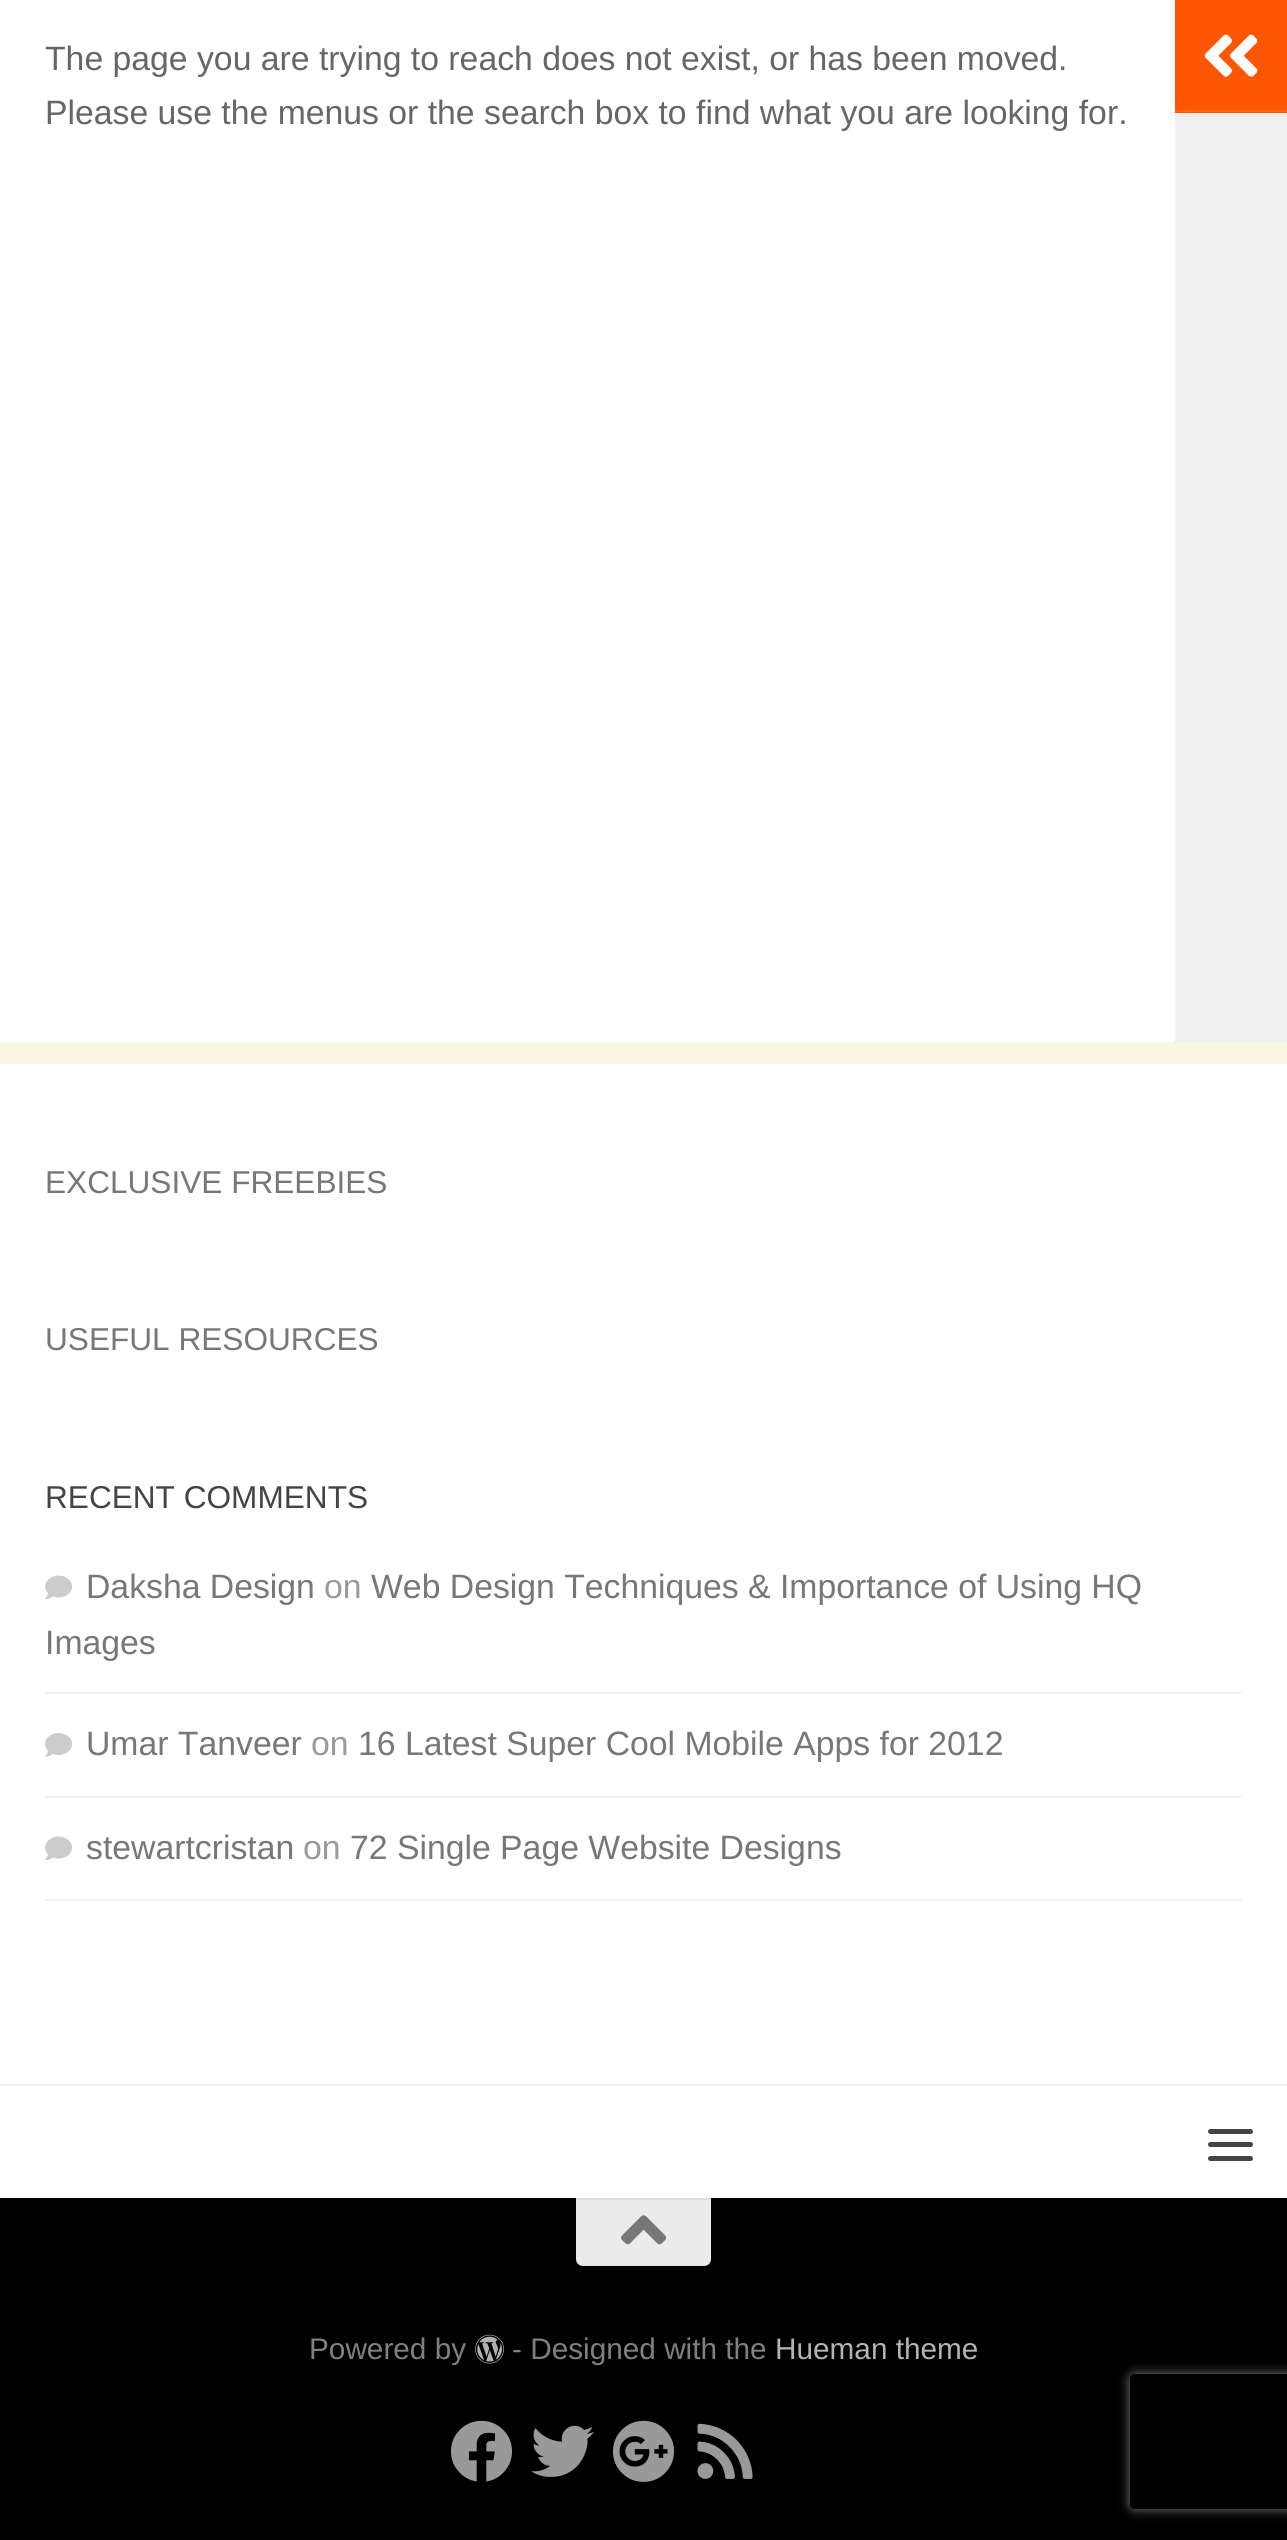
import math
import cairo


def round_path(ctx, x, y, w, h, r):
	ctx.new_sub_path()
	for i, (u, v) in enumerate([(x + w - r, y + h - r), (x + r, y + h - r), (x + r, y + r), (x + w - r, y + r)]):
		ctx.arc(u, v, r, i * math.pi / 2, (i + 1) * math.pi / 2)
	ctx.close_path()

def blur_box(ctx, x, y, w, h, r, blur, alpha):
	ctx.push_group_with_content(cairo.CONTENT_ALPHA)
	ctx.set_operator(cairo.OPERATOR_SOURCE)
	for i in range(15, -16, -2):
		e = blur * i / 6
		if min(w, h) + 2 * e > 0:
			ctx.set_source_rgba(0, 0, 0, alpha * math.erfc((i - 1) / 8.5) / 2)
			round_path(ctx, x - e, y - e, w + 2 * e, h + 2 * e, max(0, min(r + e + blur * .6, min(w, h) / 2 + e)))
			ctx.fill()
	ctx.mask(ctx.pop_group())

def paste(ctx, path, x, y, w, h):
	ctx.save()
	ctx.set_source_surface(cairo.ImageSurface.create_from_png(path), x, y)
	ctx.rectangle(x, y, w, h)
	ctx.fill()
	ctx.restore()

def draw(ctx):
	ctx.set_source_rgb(0.973, 0.965, 0.882)
	ctx.paint()
	ctx.set_source_rgb(1, 1, 1)
	ctx.rectangle(0, 0, 1175, 1042)
	ctx.fill()
	ctx.select_font_face('Liberation Sans')
	ctx.set_font_size(33.75)
	ctx.set_source_rgb(0.4, 0.4, 0.4)
	ctx.move_to(45, 70)
	ctx.show_text('The page you are trying to reach does not exist, or has been moved.')
	ctx.move_to(45, 124)
	ctx.show_text('Please use the menus or the search box to find what you are looking for.')
	ctx.set_source_rgb(0.996, 0.337, 0.012)
	ctx.rectangle(1175, 0, 112, 113)
	ctx.fill()
	ctx.set_source_rgb(0.996, 0.404, 0.11)
	ctx.rectangle(1175, 110, 112, 2)
	ctx.fill()
	paste(ctx, 'media/1.png', 1204, 34, 54, 43)
	ctx.set_source_rgb(0.941, 0.941, 0.941)
	ctx.rectangle(1175, 113, 112, 929)
	ctx.fill()
	ctx.set_source_rgb(1, 1, 1)
	ctx.rectangle(0, 1064, 1287, 1134)
	ctx.fill()
	ctx.set_font_size(31.6)
	ctx.set_source_rgb(0.467, 0.467, 0.467)
	ctx.move_to(45, 1193)
	ctx.show_text('EXCLUSIVE FREEBIES')
	ctx.move_to(45, 1350)
	ctx.show_text('USEFUL RESOURCES')
	ctx.set_source_rgb(0.267, 0.267, 0.267)
	ctx.move_to(45, 1508)
	ctx.show_text('RECENT COMMENTS')
	ctx.set_source_rgb(0.949, 0.949, 0.949)
	ctx.rectangle(45, 1692, 1197, 2)
	ctx.fill()
	paste(ctx, 'media/2.png', 45, 1575, 27, 25)
	ctx.set_font_size(33.75)
	ctx.set_source_rgb(0.467, 0.467, 0.467)
	ctx.move_to(86, 1598)
	ctx.show_text('Daksha Design')
	ctx.set_source_rgb(0.6, 0.6, 0.6)
	ctx.move_to(324, 1598)
	ctx.show_text('on')
	ctx.set_source_rgb(0.467, 0.467, 0.467)
	ctx.move_to(371, 1598)
	ctx.show_text('Web Design Techniques & Importance of Using HQ')
	ctx.move_to(45, 1654)
	ctx.show_text('Images')
	ctx.set_source_rgb(0.949, 0.949, 0.949)
	ctx.rectangle(45, 1796, 1197, 2)
	ctx.fill()
	paste(ctx, 'media/3.png', 45, 1733, 27, 24)
	ctx.set_source_rgb(0.467, 0.467, 0.467)
	ctx.move_to(86, 1755)
	ctx.show_text('Umar Tanveer')
	ctx.set_source_rgb(0.6, 0.6, 0.6)
	ctx.move_to(311, 1755)
	ctx.show_text('on')
	ctx.set_source_rgb(0.467, 0.467, 0.467)
	ctx.move_to(358, 1755)
	ctx.show_text('16 Latest Super Cool Mobile Apps for 2012')
	ctx.set_source_rgb(0.949, 0.949, 0.949)
	ctx.rectangle(45, 1899, 1197, 2)
	ctx.fill()
	paste(ctx, 'media/2.png', 45, 1836, 27, 25)
	ctx.set_source_rgb(0.467, 0.467, 0.467)
	ctx.move_to(86, 1859)
	ctx.show_text('stewartcristan')
	ctx.set_source_rgb(0.6, 0.6, 0.6)
	ctx.move_to(303, 1859)
	ctx.show_text('on')
	ctx.set_source_rgb(0.467, 0.467, 0.467)
	ctx.move_to(350, 1859)
	ctx.show_text('72 Single Page Website Designs')
	ctx.set_source_rgb(0.933, 0.933, 0.933)
	ctx.rectangle(0, 2084, 1287, 2)
	ctx.fill()
	ctx.set_source_rgb(0.267, 0.267, 0.267)
	round_path(ctx, 1208, 2129, 45, 5, 2.5)
	ctx.fill()
	round_path(ctx, 1208, 2142, 45, 5, 2.5)
	ctx.fill()
	round_path(ctx, 1208, 2156, 45, 5, 2.5)
	ctx.fill()
	ctx.set_source_rgb(0, 0, 0)
	ctx.rectangle(0, 2198, 1287, 342)
	ctx.fill()
	ctx.set_source_rgb(0.918, 0.918, 0.918)
	ctx.new_path()
	ctx.move_to(576, 2198)
	ctx.line_to(711, 2198)
	ctx.line_to(711, 2259)
	ctx.curve_to(711, 2263, 708, 2266, 704, 2266)
	ctx.line_to(583, 2266)
	ctx.curve_to(579, 2266, 576, 2263, 576, 2259)
	ctx.close_path()
	ctx.fill()
	ctx.set_source_rgb(0.871, 0.871, 0.871)
	ctx.rectangle(576, 2198, 135, 2)
	ctx.fill()
	paste(ctx, 'media/4.png', 621, 2215, 46, 30)
	ctx.set_font_size(29.75)
	ctx.set_source_rgb(0.502, 0.502, 0.502)
	ctx.move_to(309, 2359)
	ctx.show_text('Powered by')
	paste(ctx, 'media/5.png', 475, 2334, 29, 30)
	ctx.move_to(512, 2359)
	ctx.show_text('- Designed with the')
	ctx.set_source_rgb(0.702, 0.702, 0.702)
	ctx.move_to(775, 2359)
	ctx.show_text('Hueman theme')
	paste(ctx, 'media/6.png', 451, 2420, 61, 62)
	paste(ctx, 'media/7.png', 531, 2425, 63, 52)
	paste(ctx, 'media/8.png', 613, 2420, 61, 62)
	paste(ctx, 'media/9.png', 697, 2423, 56, 56)
	ctx.save()
	ctx.set_fill_rule(cairo.FILL_RULE_EVEN_ODD)
	ctx.new_path()
	ctx.move_to(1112, 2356)
	ctx.line_to(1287, 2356)
	ctx.line_to(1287, 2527)
	ctx.line_to(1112, 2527)
	ctx.close_path()
	ctx.move_to(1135, 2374)
	ctx.line_to(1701, 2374)
	ctx.curve_to(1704, 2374, 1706, 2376, 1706, 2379)
	ctx.line_to(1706, 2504)
	ctx.curve_to(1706, 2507, 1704, 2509, 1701, 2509)
	ctx.line_to(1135, 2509)
	ctx.curve_to(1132, 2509, 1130, 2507, 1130, 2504)
	ctx.line_to(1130, 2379)
	ctx.curve_to(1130, 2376, 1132, 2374, 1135, 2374)
	ctx.close_path()
	ctx.clip()
	ctx.set_source_rgb(0.502, 0.502, 0.502)
	blur_box(ctx, 1130, 2374, 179, 135, 5, 5.5, 1)
	ctx.restore()


surface = cairo.ImageSurface(cairo.FORMAT_RGB24, 1287, 2540)
ctx = cairo.Context(surface)
options = cairo.FontOptions()
options.set_hint_metrics(cairo.HINT_METRICS_OFF)
options.set_hint_style(cairo.HINT_STYLE_NONE)
ctx.set_font_options(options)
ctx.set_miter_limit(4)
draw(ctx)
surface.write_to_png('image.png')
